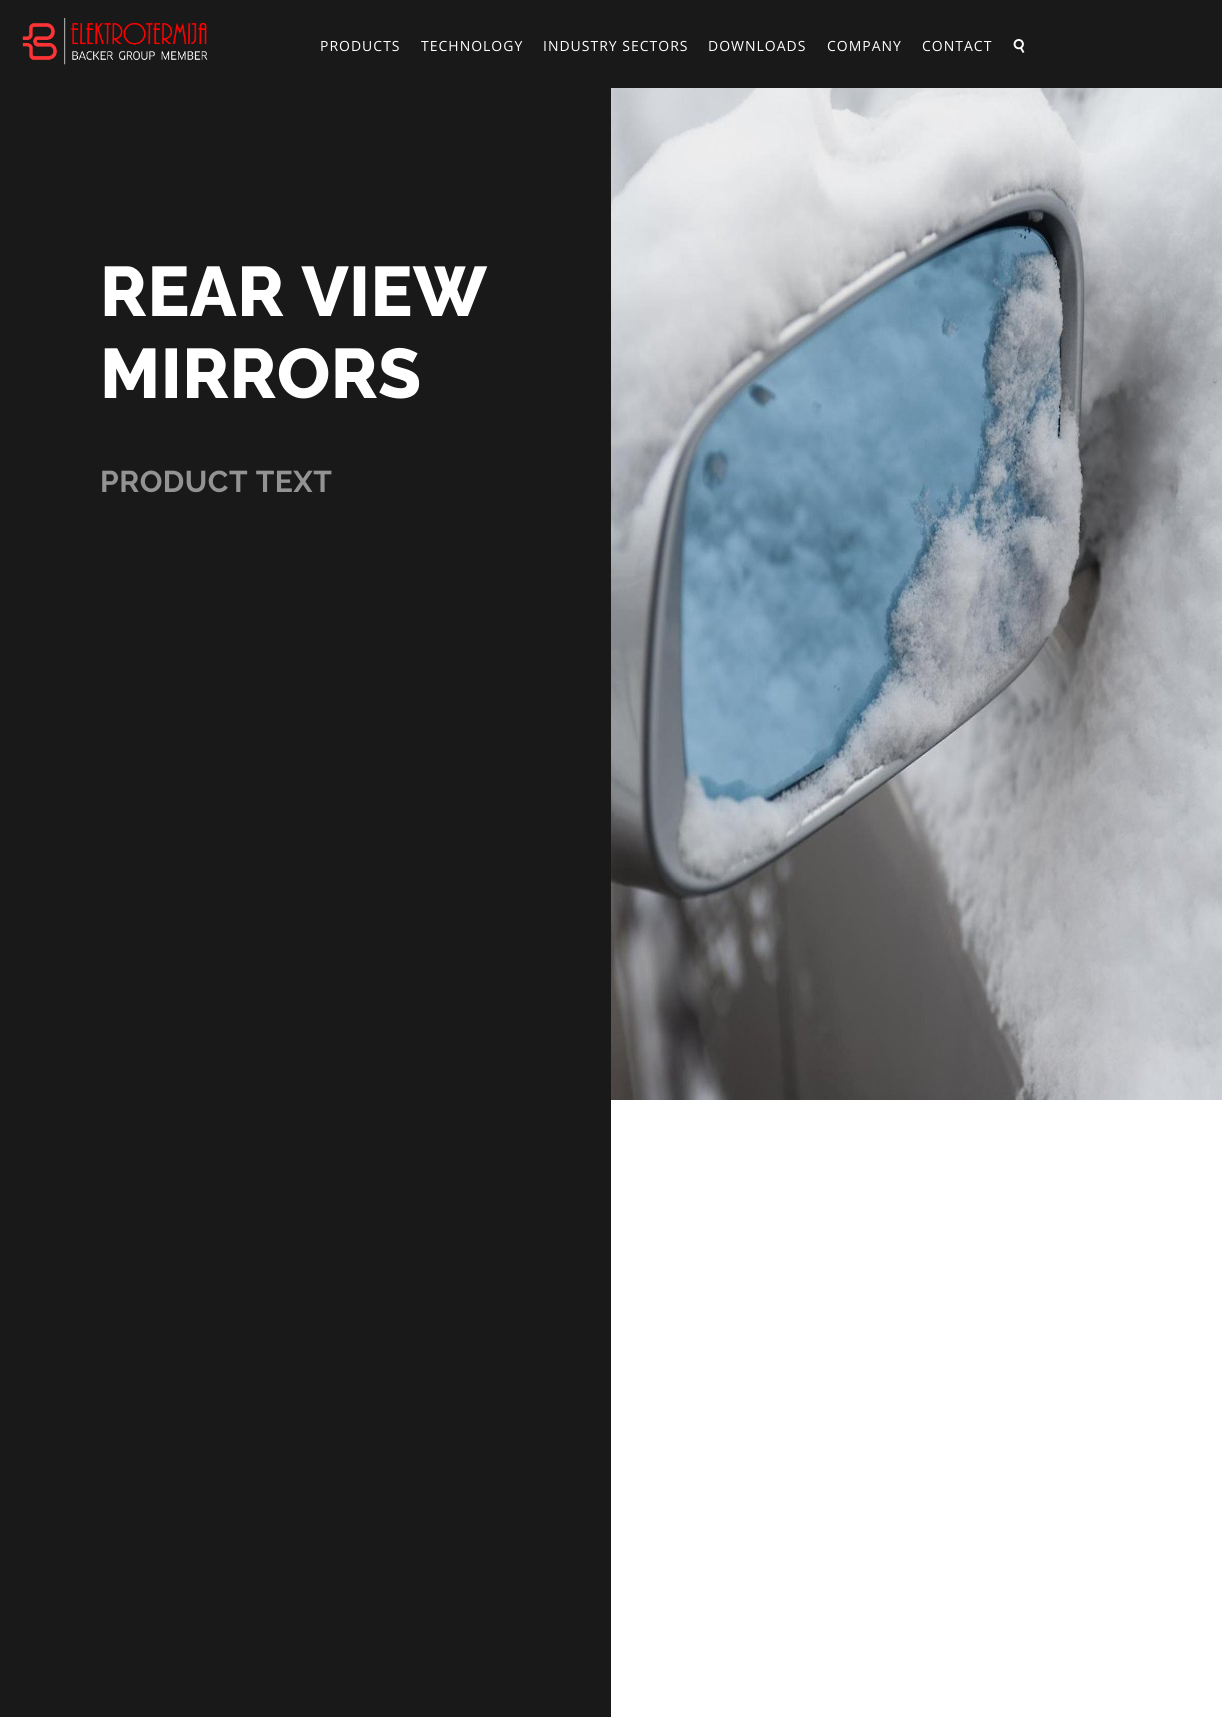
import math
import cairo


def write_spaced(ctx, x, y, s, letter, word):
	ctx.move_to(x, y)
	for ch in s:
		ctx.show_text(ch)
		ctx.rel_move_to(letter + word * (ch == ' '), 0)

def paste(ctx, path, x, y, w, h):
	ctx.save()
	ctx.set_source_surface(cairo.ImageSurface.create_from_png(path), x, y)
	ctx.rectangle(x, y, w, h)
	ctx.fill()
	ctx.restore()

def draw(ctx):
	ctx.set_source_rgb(1, 1, 1)
	ctx.paint()
	ctx.set_source_rgb(0.098, 0.098, 0.098)
	ctx.rectangle(0, 0, 1222, 88)
	ctx.fill()
	paste(ctx, 'media/1.png', 22, 18, 186, 47)
	ctx.select_font_face('Open Sans')
	ctx.set_font_size(14)
	ctx.set_source_rgb(1, 1, 1)
	for x, y, s in [
		(320, 51, 'PRODUCTS'),
		(421, 51, 'TECHNOLOGY'),
		(543, 51, 'INDUSTRY SECTORS'),
		(708, 51, 'DOWNLOADS'),
		(827, 51, 'COMPANY'),
		(922, 51, 'CONTACT'),
	]:
		write_spaced(ctx, x, y, s, 1, 0)
	paste(ctx, 'media/2.png', 1013, 39, 12, 14)
	ctx.set_source_rgb(0.098, 0.098, 0.098)
	ctx.rectangle(0, 88, 611, 1629)
	ctx.fill()
	ctx.select_font_face('Raleway Thin')
	ctx.set_font_size(70)
	ctx.set_source_rgb(1, 1, 1)
	write_spaced(ctx, 100, 316, 'REAR VIEW', 0.5, 0)
	write_spaced(ctx, 100, 398, 'MIRRORS', 0.5, 0)
	ctx.select_font_face('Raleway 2 Thin')
	ctx.set_font_size(30)
	ctx.set_source_rgb(0.576, 0.576, 0.576)
	write_spaced(ctx, 100, 492, 'PRODUCT TEXT', 0.5, 0)
	paste(ctx, 'media/3.png', 611, 88, 611, 1012)


surface = cairo.ImageSurface(cairo.FORMAT_RGB24, 1222, 1717)
ctx = cairo.Context(surface)
options = cairo.FontOptions()
options.set_hint_metrics(cairo.HINT_METRICS_OFF)
options.set_hint_style(cairo.HINT_STYLE_NONE)
ctx.set_font_options(options)
ctx.set_miter_limit(4)
draw(ctx)
surface.write_to_png('image.png')
